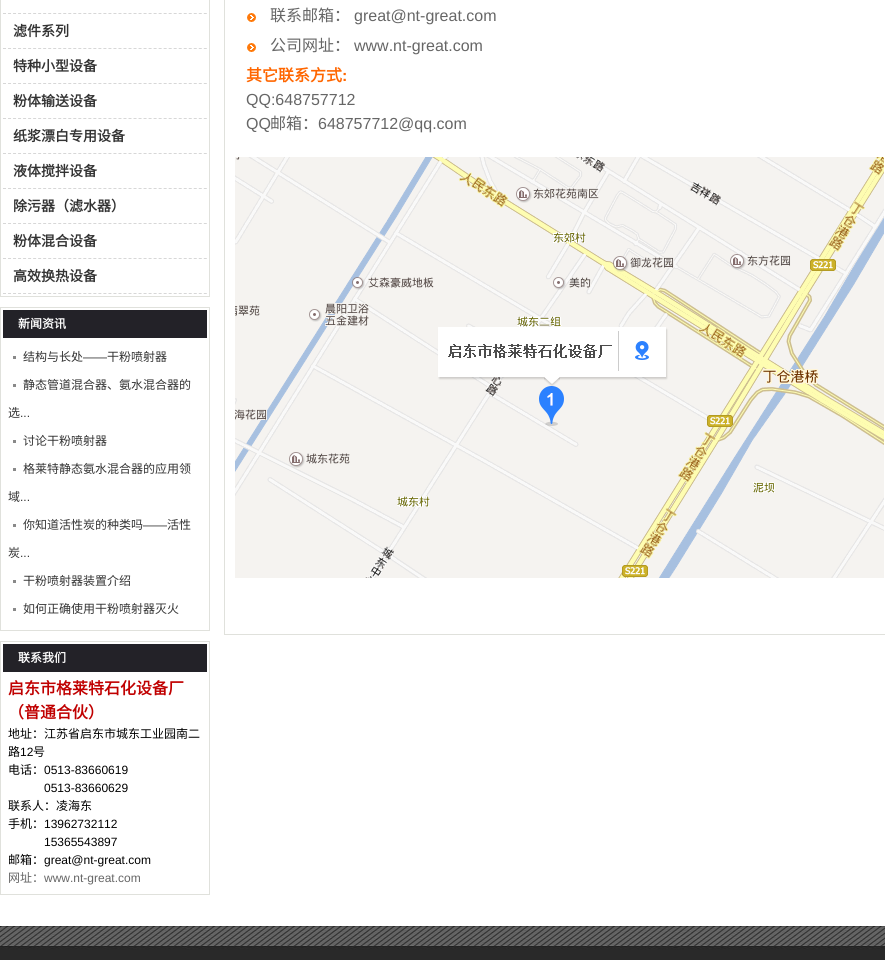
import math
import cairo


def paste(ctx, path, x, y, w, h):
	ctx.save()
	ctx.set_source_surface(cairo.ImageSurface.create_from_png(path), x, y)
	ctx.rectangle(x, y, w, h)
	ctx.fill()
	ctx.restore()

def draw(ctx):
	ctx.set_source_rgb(1, 1, 1)
	ctx.paint()
	ctx.rectangle(0.5, -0.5, 209, 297)
	ctx.set_source_rgb(0.878, 0.882, 0.863)
	ctx.set_line_width(1)
	ctx.stroke()
	ctx.new_path()
	ctx.move_to(3, 13.5)
	ctx.line_to(207, 13.5)
	ctx.set_source_rgb(0.843, 0.843, 0.843)
	ctx.set_dash([3, 2.02])
	ctx.stroke()
	ctx.new_path()
	ctx.move_to(3, 48.5)
	ctx.line_to(207, 48.5)
	ctx.stroke()
	ctx.select_font_face('Noto Sans CJK SC', cairo.FONT_SLANT_NORMAL, cairo.FONT_WEIGHT_BOLD)
	ctx.set_font_size(14)
	ctx.set_source_rgb(0.2, 0.2, 0.2)
	ctx.move_to(13, 36)
	ctx.show_text('滤件系列')
	ctx.new_path()
	ctx.move_to(3, 83.5)
	ctx.line_to(207, 83.5)
	ctx.set_source_rgb(0.843, 0.843, 0.843)
	ctx.stroke()
	ctx.set_source_rgb(0.2, 0.2, 0.2)
	ctx.move_to(13, 71)
	ctx.show_text('特种小型设备')
	ctx.new_path()
	ctx.move_to(3, 118.5)
	ctx.line_to(207, 118.5)
	ctx.set_source_rgb(0.843, 0.843, 0.843)
	ctx.stroke()
	ctx.set_source_rgb(0.2, 0.2, 0.2)
	ctx.move_to(13, 106)
	ctx.show_text('粉体输送设备')
	ctx.new_path()
	ctx.move_to(3, 153.5)
	ctx.line_to(207, 153.5)
	ctx.set_source_rgb(0.843, 0.843, 0.843)
	ctx.stroke()
	ctx.set_source_rgb(0.2, 0.2, 0.2)
	ctx.move_to(13, 141)
	ctx.show_text('纸浆漂白专用设备')
	ctx.new_path()
	ctx.move_to(3, 188.5)
	ctx.line_to(207, 188.5)
	ctx.set_source_rgb(0.843, 0.843, 0.843)
	ctx.stroke()
	ctx.set_source_rgb(0.2, 0.2, 0.2)
	ctx.move_to(13, 176)
	ctx.show_text('液体搅拌设备')
	ctx.new_path()
	ctx.move_to(3, 223.5)
	ctx.line_to(207, 223.5)
	ctx.set_source_rgb(0.843, 0.843, 0.843)
	ctx.stroke()
	ctx.set_source_rgb(0.2, 0.2, 0.2)
	ctx.move_to(13, 211)
	ctx.show_text('除污器（滤水器）')
	ctx.new_path()
	ctx.move_to(3, 258.5)
	ctx.line_to(207, 258.5)
	ctx.set_source_rgb(0.843, 0.843, 0.843)
	ctx.stroke()
	ctx.set_source_rgb(0.2, 0.2, 0.2)
	ctx.move_to(13, 246)
	ctx.show_text('粉体混合设备')
	ctx.new_path()
	ctx.move_to(3, 293.5)
	ctx.line_to(207, 293.5)
	ctx.set_source_rgb(0.843, 0.843, 0.843)
	ctx.stroke()
	ctx.set_source_rgb(0.2, 0.2, 0.2)
	ctx.move_to(13, 281)
	ctx.show_text('高效换热设备')
	ctx.rectangle(0.5, 307.5, 209, 323)
	ctx.set_source_rgb(0.878, 0.882, 0.863)
	ctx.set_dash([])
	ctx.stroke()
	ctx.set_source_rgb(0.137, 0.133, 0.157)
	ctx.rectangle(3, 310, 204, 28)
	ctx.fill()
	ctx.set_font_size(12)
	ctx.set_source_rgb(1, 1, 1)
	ctx.move_to(18, 328)
	ctx.show_text('新闻资讯')
	ctx.select_font_face('Noto Sans CJK SC')
	ctx.set_source_rgb(0.2, 0.2, 0.2)
	ctx.move_to(23, 361)
	ctx.show_text('结构与长处')
	ctx.set_source_rgb(0.537, 0.537, 0.537)
	ctx.rectangle(13, 356, 3, 3)
	ctx.fill()
	ctx.select_font_face('Liberation Sans')
	ctx.set_source_rgb(0.2, 0.2, 0.2)
	ctx.move_to(83, 361)
	ctx.show_text('——')
	ctx.select_font_face('Noto Sans CJK SC')
	ctx.move_to(107, 361)
	ctx.show_text('干粉喷射器')
	ctx.move_to(23, 389)
	ctx.show_text('静态管道混合器、氨水混合器的')
	ctx.set_source_rgb(0.537, 0.537, 0.537)
	ctx.rectangle(13, 384, 3, 3)
	ctx.fill()
	ctx.set_source_rgb(0.2, 0.2, 0.2)
	ctx.move_to(8, 417)
	ctx.show_text('选')
	ctx.select_font_face('Liberation Sans')
	ctx.move_to(20, 417)
	ctx.show_text('...')
	ctx.select_font_face('Noto Sans CJK SC')
	ctx.move_to(23, 445)
	ctx.show_text('讨论干粉喷射器')
	ctx.set_source_rgb(0.537, 0.537, 0.537)
	ctx.rectangle(13, 440, 3, 3)
	ctx.fill()
	ctx.set_source_rgb(0.2, 0.2, 0.2)
	ctx.move_to(23, 473)
	ctx.show_text('格莱特静态氨水混合器的应用领')
	ctx.set_source_rgb(0.537, 0.537, 0.537)
	ctx.rectangle(13, 468, 3, 3)
	ctx.fill()
	ctx.set_source_rgb(0.2, 0.2, 0.2)
	ctx.move_to(8, 501)
	ctx.show_text('域')
	ctx.select_font_face('Liberation Sans')
	ctx.move_to(20, 501)
	ctx.show_text('...')
	ctx.select_font_face('Noto Sans CJK SC')
	ctx.move_to(23, 529)
	ctx.show_text('你知道活性炭的种类吗')
	ctx.set_source_rgb(0.537, 0.537, 0.537)
	ctx.rectangle(13, 524, 3, 3)
	ctx.fill()
	ctx.select_font_face('Liberation Sans')
	ctx.set_source_rgb(0.2, 0.2, 0.2)
	ctx.move_to(143, 529)
	ctx.show_text('——')
	ctx.select_font_face('Noto Sans CJK SC')
	ctx.move_to(167, 529)
	ctx.show_text('活性')
	ctx.move_to(8, 557)
	ctx.show_text('炭')
	ctx.select_font_face('Liberation Sans')
	ctx.move_to(20, 557)
	ctx.show_text('...')
	ctx.select_font_face('Noto Sans CJK SC')
	ctx.move_to(23, 585)
	ctx.show_text('干粉喷射器装置介绍')
	ctx.set_source_rgb(0.537, 0.537, 0.537)
	ctx.rectangle(13, 580, 3, 3)
	ctx.fill()
	ctx.set_source_rgb(0.2, 0.2, 0.2)
	ctx.move_to(23, 613)
	ctx.show_text('如何正确使用干粉喷射器灭火')
	ctx.set_source_rgb(0.537, 0.537, 0.537)
	ctx.rectangle(13, 608, 3, 3)
	ctx.fill()
	ctx.rectangle(0.5, 641.5, 209, 253)
	ctx.set_source_rgb(0.878, 0.882, 0.863)
	ctx.stroke()
	ctx.set_source_rgb(0.137, 0.133, 0.157)
	ctx.rectangle(3, 644, 204, 28)
	ctx.fill()
	ctx.select_font_face('Noto Sans CJK SC', cairo.FONT_SLANT_NORMAL, cairo.FONT_WEIGHT_BOLD)
	ctx.set_source_rgb(1, 1, 1)
	ctx.move_to(18, 662)
	ctx.show_text('联系我们')
	ctx.set_font_size(16)
	ctx.set_source_rgb(0.753, 0, 0)
	ctx.move_to(8, 694)
	ctx.show_text('启东市格莱特石化设备厂')
	ctx.move_to(8, 718)
	ctx.show_text('（普通合伙）')
	ctx.select_font_face('Noto Sans CJK SC')
	ctx.set_font_size(12)
	ctx.set_source_rgb(0, 0, 0)
	ctx.move_to(8, 738)
	ctx.show_text('地址：江苏省启东市城东工业园南二')
	ctx.move_to(8, 756)
	ctx.show_text('路')
	ctx.select_font_face('Liberation Sans')
	ctx.move_to(20, 756)
	ctx.show_text('12')
	ctx.select_font_face('Noto Sans CJK SC')
	ctx.move_to(33, 756)
	ctx.show_text('号')
	ctx.move_to(8, 774)
	ctx.show_text('电话：')
	ctx.select_font_face('Liberation Sans')
	ctx.move_to(44, 774)
	ctx.show_text('0513-83660619')
	ctx.move_to(44, 792)
	ctx.show_text('0513-83660629')
	ctx.select_font_face('Noto Sans CJK SC')
	ctx.move_to(8, 810)
	ctx.show_text('联系人：凌海东')
	ctx.move_to(8, 828)
	ctx.show_text('手机：')
	ctx.select_font_face('Liberation Sans')
	ctx.move_to(44, 828)
	ctx.show_text('13962732112')
	ctx.move_to(44, 846)
	ctx.show_text('15365543897')
	ctx.select_font_face('Noto Sans CJK SC')
	ctx.move_to(8, 864)
	ctx.show_text('邮箱：')
	ctx.select_font_face('Liberation Sans')
	ctx.move_to(44, 864)
	ctx.show_text('great@nt-great.com')
	ctx.select_font_face('Noto Sans CJK SC')
	ctx.set_source_rgb(0.4, 0.4, 0.4)
	ctx.move_to(8, 882)
	ctx.show_text('网址：')
	ctx.select_font_face('Liberation Sans')
	ctx.move_to(44, 882)
	ctx.show_text('www.nt-great.com')
	ctx.rectangle(224.5, -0.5, 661, 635)
	ctx.set_source_rgb(0.878, 0.882, 0.863)
	ctx.stroke()
	paste(ctx, 'media/1.png', 247, 13, 9, 9)
	ctx.select_font_face('Noto Sans CJK SC')
	ctx.set_font_size(16)
	ctx.set_source_rgb(0.4, 0.4, 0.4)
	ctx.move_to(270, 21)
	ctx.show_text('联系邮箱：')
	ctx.select_font_face('Liberation Sans')
	ctx.move_to(354, 21)
	ctx.show_text('great@nt-great.com')
	paste(ctx, 'media/1.png', 247, 43, 9, 9)
	ctx.select_font_face('Noto Sans CJK SC')
	ctx.move_to(270, 51)
	ctx.show_text('公司网址：')
	ctx.select_font_face('Liberation Sans')
	ctx.move_to(354, 51)
	ctx.show_text('www.nt-great.com')
	ctx.select_font_face('Noto Sans CJK SC', cairo.FONT_SLANT_NORMAL, cairo.FONT_WEIGHT_BOLD)
	ctx.set_source_rgb(1, 0.4, 0)
	ctx.move_to(246, 81)
	ctx.show_text('其它联系方式')
	ctx.select_font_face('Liberation Sans', cairo.FONT_SLANT_NORMAL, cairo.FONT_WEIGHT_BOLD)
	ctx.move_to(342, 81)
	ctx.show_text(':')
	ctx.select_font_face('Liberation Sans')
	ctx.set_source_rgb(0.4, 0.4, 0.4)
	ctx.move_to(246, 105)
	ctx.show_text('QQ:648757712')
	ctx.move_to(246, 129)
	ctx.show_text('QQ')
	ctx.select_font_face('Noto Sans CJK SC')
	ctx.move_to(270, 129)
	ctx.show_text('邮箱：')
	ctx.select_font_face('Liberation Sans')
	ctx.move_to(318, 129)
	ctx.show_text('648757712@qq.com')
	paste(ctx, 'media/2.png', 235, 157, 649, 421)
	paste(ctx, 'media/3.png', 0, 926, 885, 34)


surface = cairo.ImageSurface(cairo.FORMAT_RGB24, 885, 960)
ctx = cairo.Context(surface)
options = cairo.FontOptions()
options.set_hint_metrics(cairo.HINT_METRICS_OFF)
options.set_hint_style(cairo.HINT_STYLE_NONE)
ctx.set_font_options(options)
ctx.set_miter_limit(4)
draw(ctx)
surface.write_to_png('image.png')
